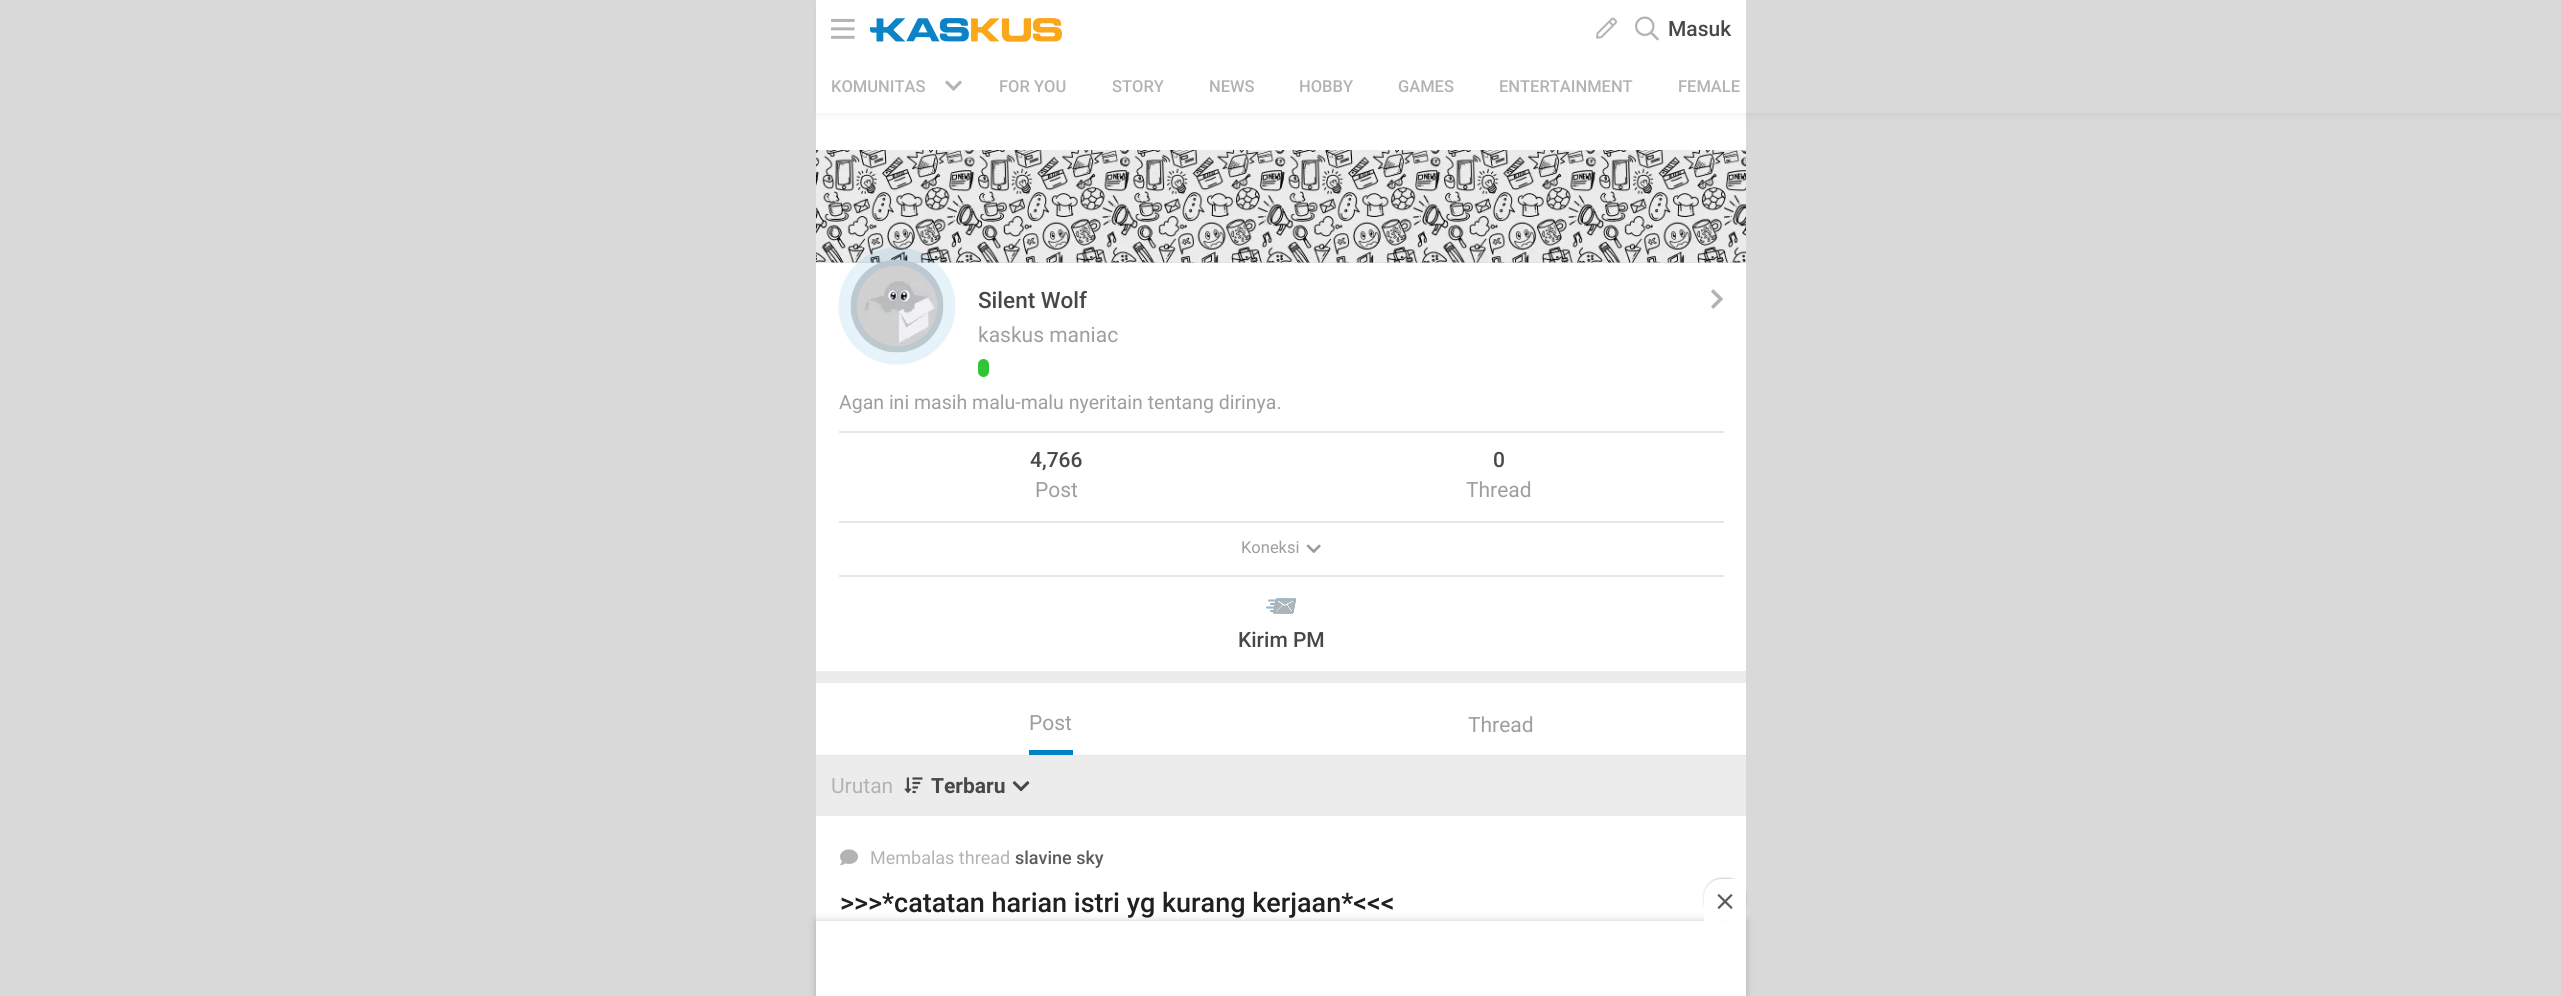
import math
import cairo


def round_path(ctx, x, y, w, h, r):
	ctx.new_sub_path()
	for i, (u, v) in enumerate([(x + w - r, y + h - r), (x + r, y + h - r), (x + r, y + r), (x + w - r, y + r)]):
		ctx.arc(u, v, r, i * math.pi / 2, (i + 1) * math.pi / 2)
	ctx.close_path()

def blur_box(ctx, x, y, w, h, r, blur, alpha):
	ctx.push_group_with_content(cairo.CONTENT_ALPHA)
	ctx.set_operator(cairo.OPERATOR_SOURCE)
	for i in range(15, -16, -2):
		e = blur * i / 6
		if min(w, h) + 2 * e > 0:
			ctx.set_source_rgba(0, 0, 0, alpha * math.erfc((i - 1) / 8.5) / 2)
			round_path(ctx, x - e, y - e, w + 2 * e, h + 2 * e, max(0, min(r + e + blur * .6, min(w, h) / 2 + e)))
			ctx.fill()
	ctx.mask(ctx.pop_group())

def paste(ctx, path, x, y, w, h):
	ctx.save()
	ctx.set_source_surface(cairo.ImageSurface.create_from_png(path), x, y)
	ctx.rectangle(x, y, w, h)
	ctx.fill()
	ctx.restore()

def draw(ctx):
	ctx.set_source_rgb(0.851, 0.851, 0.851)
	ctx.paint()
	ctx.set_source_rgb(1, 1, 1)
	ctx.rectangle(816, 0, 930, 921)
	ctx.fill()
	ctx.save()
	ctx.set_fill_rule(cairo.FILL_RULE_EVEN_ODD)
	ctx.new_path()
	ctx.move_to(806, 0)
	ctx.line_to(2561, 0)
	ctx.line_to(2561, 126)
	ctx.line_to(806, 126)
	ctx.close_path()
	ctx.move_to(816, 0)
	ctx.line_to(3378, 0)
	ctx.line_to(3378, 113)
	ctx.line_to(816, 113)
	ctx.close_path()
	ctx.clip()
	ctx.set_source_rgb(0, 0, 0)
	blur_box(ctx, 816, 3, 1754, 113, 0, 3, 0.05)
	ctx.restore()
	paste(ctx, 'media/1.png', 831, 18, 24, 21)
	paste(ctx, 'media/2.png', 870, 18, 192, 24)
	paste(ctx, 'media/3.png', 1596, 17, 21, 22)
	paste(ctx, 'media/4.png', 1635, 16, 24, 25)
	ctx.select_font_face('Roboto Medium')
	ctx.set_font_size(21)
	ctx.set_source_rgb(0.282, 0.282, 0.282)
	ctx.move_to(1668, 36)
	ctx.show_text('Masuk')
	ctx.set_source_rgb(1, 1, 1)
	ctx.rectangle(816, 112, 930, 1)
	ctx.fill()
	ctx.set_font_size(16.5)
	ctx.set_source_rgb(0.702, 0.702, 0.702)
	ctx.move_to(831, 92)
	ctx.show_text('KOMUNITAS')
	paste(ctx, 'media/5.png', 945, 80, 17, 11)
	for x, y, s in [
		(999, 92, 'FOR YOU'),
		(1112, 92, 'STORY'),
		(1209, 92, 'NEWS'),
		(1299, 92, 'HOBBY'),
		(1398, 92, 'GAMES'),
		(1499, 92, 'ENTERTAINMENT'),
		(1678, 92, 'FEMALE'),
	]:
		ctx.move_to(x, y)
		ctx.show_text(s)
	ctx.set_source_rgb(0.847, 0.847, 0.847)
	ctx.rectangle(816, 262, 930, 1)
	ctx.fill()
	paste(ctx, 'media/6.png', 816, 150, 930, 113)
	paste(ctx, 'media/8.png', 850, 259, 94, 94)
	paste(ctx, 'media/7.png', 838, 247, 118, 118)
	ctx.set_font_size(22.5)
	ctx.set_source_rgb(0.282, 0.282, 0.282)
	ctx.move_to(978, 308)
	ctx.show_text('Silent Wolf')
	ctx.select_font_face('Roboto')
	ctx.set_font_size(21)
	ctx.set_source_rgb(0.62, 0.62, 0.62)
	ctx.move_to(978, 342)
	ctx.show_text('kaskus maniac')
	ctx.set_source_rgb(0.188, 0.769, 0.212)
	round_path(ctx, 978, 359, 11, 18, 5.5)
	ctx.fill()
	paste(ctx, 'media/9.png', 1711, 289, 12, 20)
	ctx.set_source_rgb(0.922, 0.922, 0.922)
	ctx.rectangle(816, 671, 930, 12)
	ctx.fill()
	ctx.set_font_size(19.5)
	ctx.set_source_rgb(0.62, 0.62, 0.62)
	ctx.move_to(839, 409)
	ctx.show_text('Agan ini masih malu-malu nyeritain tentang dirinya.')
	ctx.set_source_rgb(0.902, 0.902, 0.902)
	ctx.rectangle(839, 431, 885, 2)
	ctx.fill()
	ctx.select_font_face('Roboto Medium')
	ctx.set_font_size(21)
	ctx.set_source_rgb(0.282, 0.282, 0.282)
	ctx.move_to(1030, 467)
	ctx.show_text('4,766')
	ctx.select_font_face('Roboto')
	ctx.set_source_rgb(0.62, 0.62, 0.62)
	ctx.move_to(1035, 497)
	ctx.show_text('Post')
	ctx.select_font_face('Roboto Medium')
	ctx.set_source_rgb(0.282, 0.282, 0.282)
	ctx.move_to(1493, 467)
	ctx.show_text('0')
	ctx.select_font_face('Roboto')
	ctx.set_source_rgb(0.62, 0.62, 0.62)
	ctx.move_to(1466, 497)
	ctx.show_text('Thread')
	ctx.set_source_rgb(0.902, 0.902, 0.902)
	ctx.rectangle(839, 521, 885, 2)
	ctx.fill()
	ctx.set_font_size(16.5)
	ctx.set_source_rgb(0.62, 0.62, 0.62)
	ctx.move_to(1241, 553)
	ctx.show_text('Koneksi')
	paste(ctx, 'media/10.png', 1306, 544, 15, 9)
	ctx.set_source_rgb(0.902, 0.902, 0.902)
	ctx.rectangle(839, 575, 885, 2)
	ctx.fill()
	paste(ctx, 'media/11.png', 1266, 598, 30, 16)
	ctx.select_font_face('Roboto Medium')
	ctx.set_font_size(21)
	ctx.set_source_rgb(0.282, 0.282, 0.282)
	ctx.move_to(1238, 647)
	ctx.show_text('Kirim PM')
	ctx.set_source_rgb(0.902, 0.902, 0.902)
	ctx.rectangle(816, 755, 930, 1)
	ctx.fill()
	ctx.set_source_rgb(0, 0.51, 0.776)
	ctx.rectangle(1029, 750, 44, 5)
	ctx.fill()
	ctx.select_font_face('Roboto')
	ctx.set_source_rgb(0.62, 0.62, 0.62)
	ctx.move_to(1029, 730)
	ctx.show_text('Post')
	ctx.move_to(1468, 732)
	ctx.show_text('Thread')
	ctx.set_source_rgb(0.922, 0.922, 0.922)
	ctx.rectangle(816, 756, 930, 60)
	ctx.fill()
	ctx.set_source_rgb(0.702, 0.702, 0.702)
	ctx.move_to(831, 793)
	ctx.show_text('Urutan')
	paste(ctx, 'media/12.png', 904, 777, 19, 17)
	ctx.select_font_face('Roboto', cairo.FONT_SLANT_NORMAL, cairo.FONT_WEIGHT_BOLD)
	ctx.set_source_rgb(0.282, 0.282, 0.282)
	ctx.move_to(931, 793)
	ctx.show_text('Terbaru')
	paste(ctx, 'media/13.png', 1012, 781, 18, 11)
	paste(ctx, 'media/14.png', 840, 849, 18, 17)
	ctx.select_font_face('Roboto')
	ctx.set_font_size(18)
	ctx.set_source_rgb(0.702, 0.702, 0.702)
	ctx.move_to(870, 864)
	ctx.show_text('Membalas thread')
	ctx.select_font_face('Roboto Medium')
	ctx.set_source_rgb(0.361, 0.361, 0.361)
	ctx.move_to(1015, 864)
	ctx.show_text('slavine sky')
	ctx.set_font_size(27)
	ctx.set_source_rgb(0.125, 0.125, 0.125)
	ctx.move_to(840, 912)
	ctx.show_text('>>>*catatan harian istri yg kurang kerjaan*<<<')
	ctx.set_source_rgb(0, 0, 0)
	blur_box(ctx, 816, 921, 930, 75, 0, 4, 0.2)
	ctx.set_source_rgb(1, 1, 1)
	ctx.rectangle(816, 921, 930, 75)
	ctx.fill()
	ctx.set_source_rgb(0, 0, 0)
	blur_box(ctx, 1704, 878, 42, 42, 18, 1, 0.2)
	ctx.set_source_rgb(1, 1, 1)
	ctx.new_path()
	ctx.move_to(1722, 879)
	ctx.line_to(1746, 879)
	ctx.line_to(1746, 921)
	ctx.line_to(1704, 921)
	ctx.line_to(1704, 897)
	ctx.curve_to(1704, 887, 1712, 879, 1722, 879)
	ctx.close_path()
	ctx.fill()
	paste(ctx, 'media/15.png', 1717, 894, 16, 15)


surface = cairo.ImageSurface(cairo.FORMAT_RGB24, 2561, 996)
ctx = cairo.Context(surface)
options = cairo.FontOptions()
options.set_hint_metrics(cairo.HINT_METRICS_OFF)
options.set_hint_style(cairo.HINT_STYLE_NONE)
ctx.set_font_options(options)
ctx.set_miter_limit(4)
draw(ctx)
surface.write_to_png('image.png')
